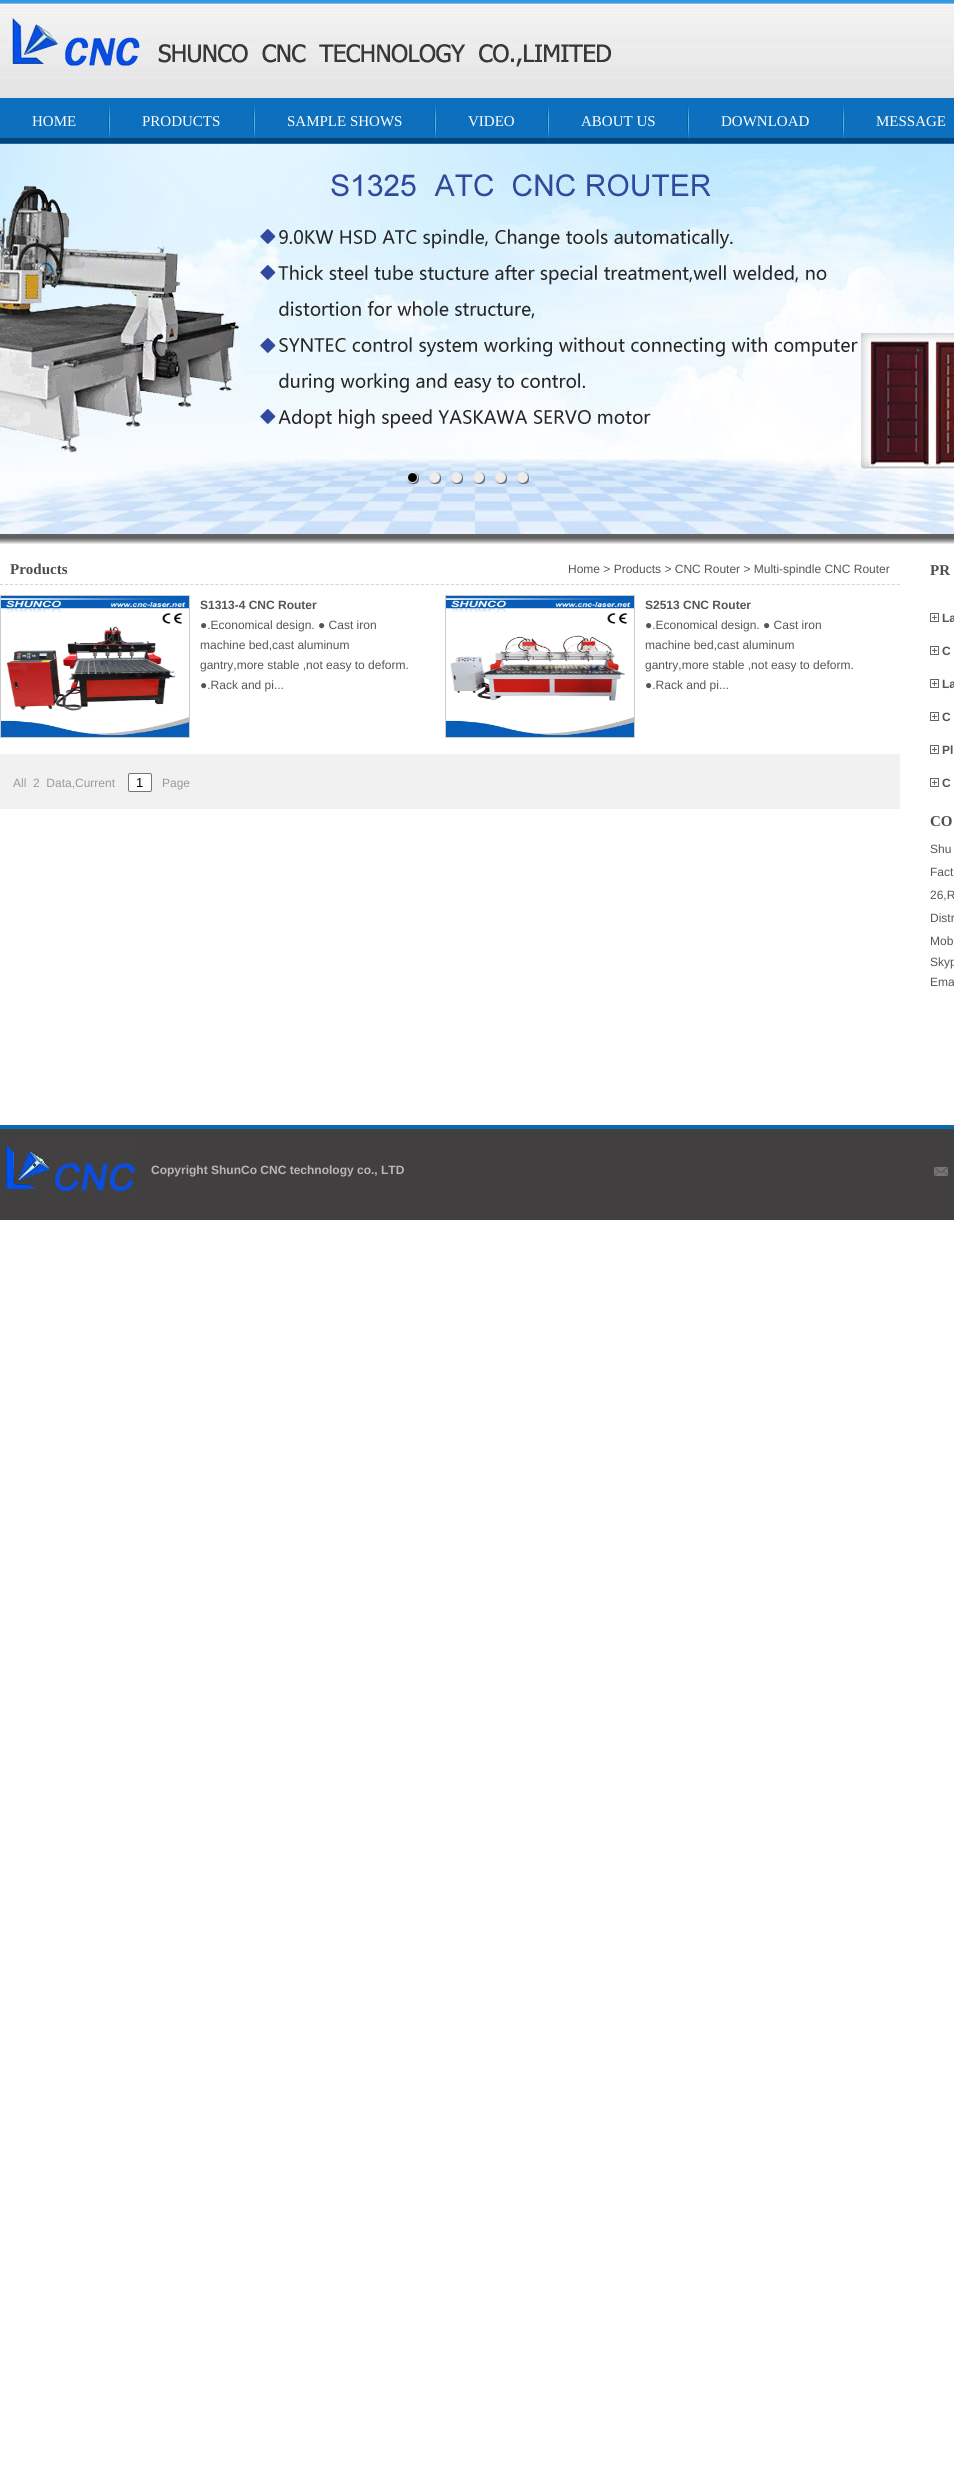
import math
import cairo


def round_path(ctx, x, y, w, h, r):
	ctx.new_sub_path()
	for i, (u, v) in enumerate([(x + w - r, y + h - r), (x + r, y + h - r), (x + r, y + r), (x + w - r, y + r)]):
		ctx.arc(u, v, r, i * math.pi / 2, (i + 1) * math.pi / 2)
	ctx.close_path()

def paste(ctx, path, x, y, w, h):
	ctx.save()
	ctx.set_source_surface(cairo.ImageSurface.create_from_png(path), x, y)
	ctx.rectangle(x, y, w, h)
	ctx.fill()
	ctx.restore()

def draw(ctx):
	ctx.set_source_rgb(1, 1, 1)
	ctx.paint()
	paste(ctx, 'media/1.png', 0, 0, 954, 98)
	paste(ctx, 'media/2.png', 8, 16, 606, 56)
	paste(ctx, 'media/3.png', 0, 98, 954, 46)
	ctx.select_font_face('Liberation Serif')
	ctx.set_font_size(15)
	ctx.set_source_rgb(1, 1, 1)
	ctx.move_to(32, 126)
	ctx.show_text('HOME')
	paste(ctx, 'media/4.png', 108, 105, 2, 35)
	ctx.move_to(142, 126)
	ctx.show_text('PRODUCTS')
	paste(ctx, 'media/4.png', 253, 105, 2, 35)
	ctx.move_to(287, 126)
	ctx.show_text('SAMPLE SHOWS')
	paste(ctx, 'media/4.png', 434, 105, 2, 35)
	ctx.move_to(468, 126)
	ctx.show_text('VIDEO')
	paste(ctx, 'media/4.png', 547, 105, 2, 35)
	ctx.move_to(581, 126)
	ctx.show_text('ABOUT US')
	paste(ctx, 'media/4.png', 687, 105, 2, 35)
	ctx.move_to(721, 126)
	ctx.show_text('DOWNLOAD')
	paste(ctx, 'media/4.png', 842, 105, 2, 35)
	ctx.move_to(876, 126)
	ctx.show_text('MESSAGE')
	paste(ctx, 'media/5.png', 0, 144, 954, 390)
	paste(ctx, 'media/6.png', 407, 472, 12, 12)
	paste(ctx, 'media/7.png', 429, 472, 12, 12)
	paste(ctx, 'media/8.png', 451, 472, 12, 12)
	paste(ctx, 'media/9.png', 473, 472, 12, 12)
	paste(ctx, 'media/10.png', 495, 472, 12, 12)
	paste(ctx, 'media/11.png', 517, 472, 12, 12)
	paste(ctx, 'media/12.png', 0, 534, 954, 10)
	ctx.new_path()
	ctx.move_to(0, 584.5)
	ctx.line_to(900, 584.5)
	ctx.set_source_rgb(0.835, 0.827, 0.827)
	ctx.set_line_width(1)
	ctx.set_dash([3, 2.01])
	ctx.stroke()
	ctx.select_font_face('Liberation Serif', cairo.FONT_SLANT_NORMAL, cairo.FONT_WEIGHT_BOLD)
	ctx.set_source_rgb(0.318, 0.302, 0.302)
	ctx.move_to(10, 574)
	ctx.show_text('Products')
	ctx.select_font_face('Liberation Sans')
	ctx.set_font_size(12)
	ctx.set_source_rgb(0.333, 0.333, 0.333)
	ctx.move_to(568, 573)
	ctx.show_text('Home > Products > CNC Router > Multi-spindle CNC Router')
	ctx.rectangle(0.5, 595.5, 189, 142)
	ctx.set_source_rgb(0.8, 0.8, 0.8)
	ctx.set_dash([])
	ctx.stroke()
	paste(ctx, 'media/13.png', 1, 596, 188, 141)
	ctx.select_font_face('Liberation Sans', cairo.FONT_SLANT_NORMAL, cairo.FONT_WEIGHT_BOLD)
	ctx.set_source_rgb(0.333, 0.333, 0.333)
	ctx.move_to(200, 609)
	ctx.show_text('S1313-4 CNC Router')
	ctx.select_font_face('Liberation Sans')
	for x, y, s in [
		(200, 629, '●.Economical design. ● Cast iron'),
		(200, 649, 'machine bed,cast aluminum'),
		(200, 669, 'gantry,more stable ,not easy to deform.'),
		(200, 689, '●.Rack and pi...'),
	]:
		ctx.move_to(x, y)
		ctx.show_text(s)
	ctx.rectangle(445.5, 595.5, 189, 142)
	ctx.set_source_rgb(0.8, 0.8, 0.8)
	ctx.stroke()
	paste(ctx, 'media/14.png', 446, 596, 188, 141)
	ctx.select_font_face('Liberation Sans', cairo.FONT_SLANT_NORMAL, cairo.FONT_WEIGHT_BOLD)
	ctx.set_source_rgb(0.333, 0.333, 0.333)
	ctx.move_to(645, 609)
	ctx.show_text('S2513 CNC Router')
	ctx.select_font_face('Liberation Sans')
	for x, y, s in [
		(645, 629, '●.Economical design. ● Cast iron'),
		(645, 649, 'machine bed,cast aluminum'),
		(645, 669, 'gantry,more stable ,not easy to deform.'),
		(645, 689, '●.Rack and pi...'),
	]:
		ctx.move_to(x, y)
		ctx.show_text(s)
	ctx.set_source_rgb(0.945, 0.945, 0.945)
	ctx.rectangle(0, 754, 900, 55)
	ctx.fill()
	ctx.set_source_rgb(0.6, 0.6, 0.6)
	ctx.move_to(13, 787)
	ctx.show_text('All  2  Data,Current')
	ctx.set_source_rgb(1, 1, 1)
	round_path(ctx, 128.5, 773.5, 23, 18, 1.5)
	ctx.fill_preserve()
	ctx.set_source_rgb(0.463, 0.463, 0.463)
	ctx.stroke()
	ctx.set_font_size(13)
	ctx.set_source_rgb(0, 0, 0)
	ctx.move_to(136, 787)
	ctx.show_text('1')
	ctx.set_font_size(12)
	ctx.set_source_rgb(0.6, 0.6, 0.6)
	ctx.move_to(162, 787)
	ctx.show_text('Page')
	ctx.select_font_face('Liberation Serif', cairo.FONT_SLANT_NORMAL, cairo.FONT_WEIGHT_BOLD)
	ctx.set_font_size(15)
	ctx.set_source_rgb(0.318, 0.302, 0.302)
	ctx.move_to(930, 575)
	ctx.show_text('PR')
	paste(ctx, 'media/15.png', 930, 613, 9, 9)
	ctx.select_font_face('Liberation Sans', cairo.FONT_SLANT_NORMAL, cairo.FONT_WEIGHT_BOLD)
	ctx.set_font_size(12)
	ctx.set_source_rgb(0.333, 0.333, 0.333)
	ctx.move_to(942, 622)
	ctx.show_text('La')
	paste(ctx, 'media/15.png', 930, 646, 9, 9)
	ctx.move_to(942, 655)
	ctx.show_text('C')
	paste(ctx, 'media/15.png', 930, 679, 9, 9)
	ctx.move_to(942, 688)
	ctx.show_text('La')
	paste(ctx, 'media/15.png', 930, 712, 9, 9)
	ctx.move_to(942, 721)
	ctx.show_text('C')
	paste(ctx, 'media/15.png', 930, 745, 9, 9)
	ctx.move_to(942, 754)
	ctx.show_text('Pl')
	paste(ctx, 'media/15.png', 930, 778, 9, 9)
	ctx.move_to(942, 787)
	ctx.show_text('C')
	ctx.select_font_face('Liberation Serif', cairo.FONT_SLANT_NORMAL, cairo.FONT_WEIGHT_BOLD)
	ctx.set_font_size(15)
	ctx.set_source_rgb(0.318, 0.302, 0.302)
	ctx.move_to(930, 826)
	ctx.show_text('CO')
	ctx.select_font_face('Liberation Sans')
	ctx.set_font_size(12)
	ctx.set_source_rgb(0.333, 0.333, 0.333)
	for x, y, s in [
		(930, 853, 'Shu'),
		(930, 876, 'Fact'),
		(930, 899, '26,R'),
		(930, 922, 'Distr'),
		(930, 945, 'Mob'),
		(930, 966, 'Skyp'),
		(930, 986, 'Ema'),
	]:
		ctx.move_to(x, y)
		ctx.show_text(s)
	paste(ctx, 'media/16.png', 0, 1125, 954, 95)
	paste(ctx, 'media/17.png', 0, 1140, 136, 56)
	ctx.select_font_face('Liberation Sans', cairo.FONT_SLANT_NORMAL, cairo.FONT_WEIGHT_BOLD)
	ctx.set_source_rgb(0.725, 0.714, 0.714)
	ctx.move_to(151, 1174)
	ctx.show_text('Copyright ShunCo CNC technology co., LTD')
	paste(ctx, 'media/18.png', 934, 1167, 14, 9)


surface = cairo.ImageSurface(cairo.FORMAT_RGB24, 954, 2479)
ctx = cairo.Context(surface)
options = cairo.FontOptions()
options.set_hint_metrics(cairo.HINT_METRICS_OFF)
options.set_hint_style(cairo.HINT_STYLE_NONE)
ctx.set_font_options(options)
ctx.set_miter_limit(4)
draw(ctx)
surface.write_to_png('image.png')
